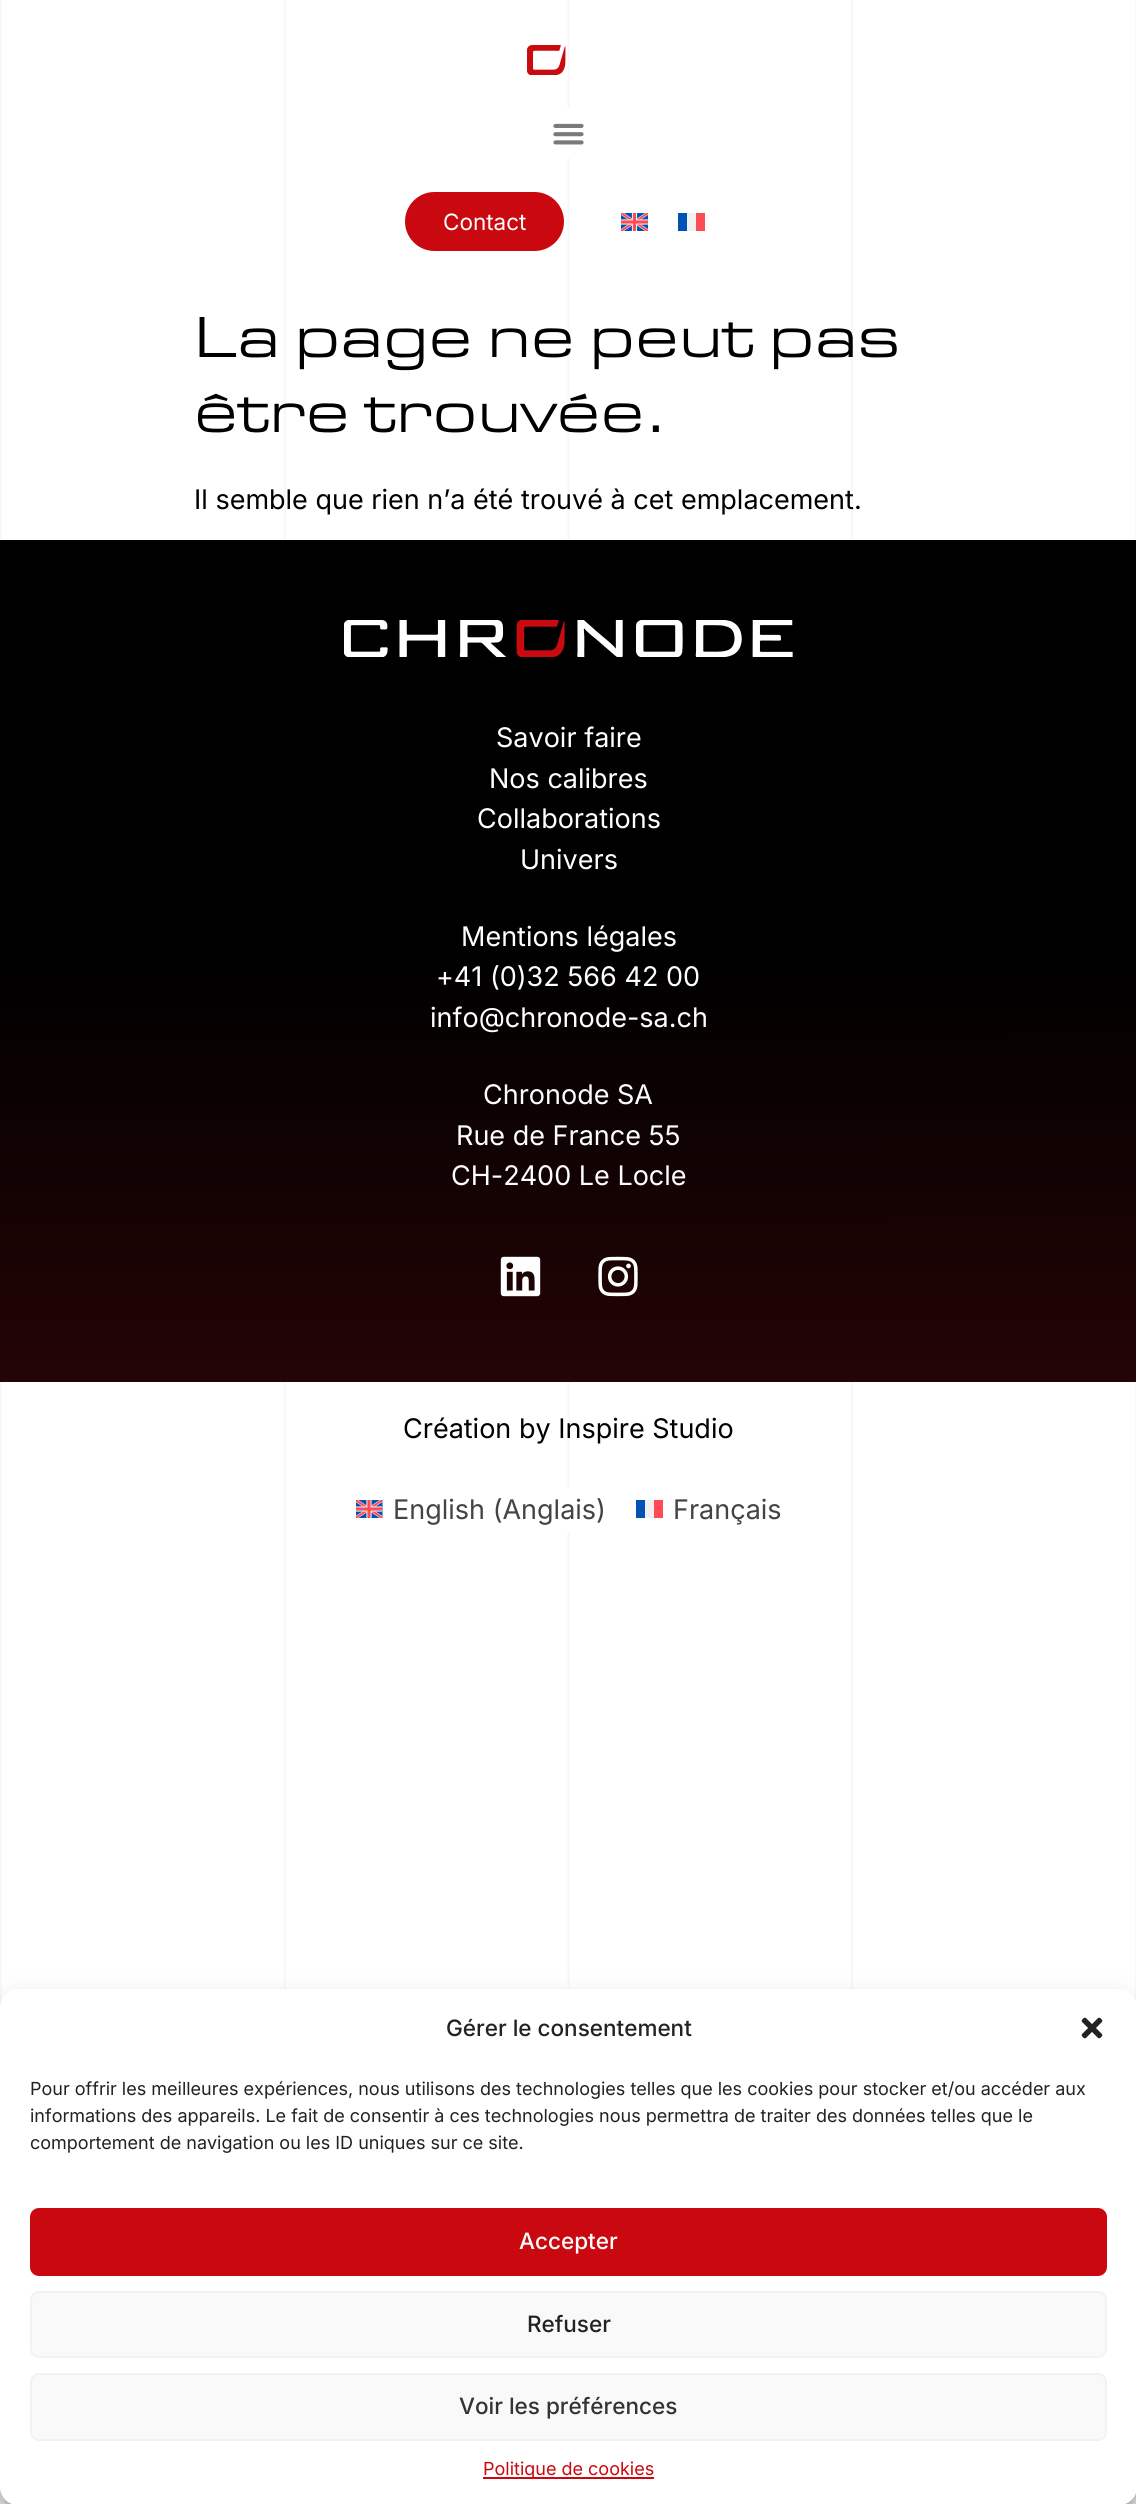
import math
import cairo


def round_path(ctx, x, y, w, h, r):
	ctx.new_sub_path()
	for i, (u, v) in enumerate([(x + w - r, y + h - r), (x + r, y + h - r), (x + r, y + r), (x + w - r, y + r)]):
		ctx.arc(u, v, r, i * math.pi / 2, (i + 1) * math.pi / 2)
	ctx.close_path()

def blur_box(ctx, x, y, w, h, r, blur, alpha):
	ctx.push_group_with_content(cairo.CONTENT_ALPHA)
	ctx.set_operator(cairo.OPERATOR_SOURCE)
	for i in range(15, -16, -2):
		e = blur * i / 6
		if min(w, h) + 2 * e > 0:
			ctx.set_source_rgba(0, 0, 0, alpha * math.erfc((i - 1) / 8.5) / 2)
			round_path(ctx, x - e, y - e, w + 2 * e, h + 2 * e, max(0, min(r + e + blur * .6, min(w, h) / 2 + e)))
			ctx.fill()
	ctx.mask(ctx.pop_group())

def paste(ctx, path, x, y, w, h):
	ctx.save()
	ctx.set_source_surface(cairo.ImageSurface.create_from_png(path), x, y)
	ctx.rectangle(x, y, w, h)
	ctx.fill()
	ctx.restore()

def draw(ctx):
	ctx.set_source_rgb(1, 1, 1)
	ctx.paint()
	paste(ctx, 'media/1.png', 0, 0, 1136, 2504)
	paste(ctx, 'media/2.png', 527, 45, 39, 30)
	ctx.set_source_rgb(1, 1, 1)
	round_path(ctx, 545, 108, 49, 50, 5)
	ctx.fill()
	paste(ctx, 'media/3.png', 553, 123, 31, 22)
	ctx.set_source_rgb(0.788, 0.039, 0.059)
	round_path(ctx, 405, 192, 159, 59, 29.5)
	ctx.fill()
	ctx.select_font_face('Inter')
	ctx.set_font_size(22.5)
	ctx.set_source_rgb(1, 1, 1)
	ctx.move_to(443, 230)
	ctx.show_text('Contact')
	paste(ctx, 'media/4.png', 621, 213, 27, 18)
	ctx.set_source_rgb(0, 0.322, 0.706)
	ctx.rectangle(678, 213, 9, 18)
	ctx.fill()
	ctx.set_source_rgb(0.941, 0.941, 0.941)
	ctx.rectangle(687, 213, 9, 18)
	ctx.fill()
	ctx.set_source_rgb(1, 0.294, 0.333)
	ctx.rectangle(696, 213, 9, 18)
	ctx.fill()
	ctx.select_font_face('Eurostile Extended')
	ctx.set_font_size(60)
	ctx.set_source_rgb(0, 0, 0)
	ctx.move_to(194, 357)
	ctx.show_text('La page ne peut pas')
	ctx.move_to(194, 432)
	ctx.show_text('être trouvée.')
	ctx.select_font_face('Inter')
	ctx.set_font_size(27)
	ctx.move_to(194, 509)
	ctx.show_text('Il semble que rien n’a été trouvé à cet emplacement.')
	gradient = cairo.LinearGradient(568, 540, 569, 1382)
	gradient.add_color_stop_rgba(0.5, 0, 0, 0, 1)
	gradient.add_color_stop_rgba(1, 0.145, 0.016, 0.02, 1)
	ctx.set_source(gradient)
	ctx.rectangle(0, 540, 1136, 842)
	ctx.fill()
	paste(ctx, 'media/5.png', 344, 620, 449, 37)
	ctx.set_source_rgb(1, 1, 1)
	for x, y, s in [
		(496, 747, 'Savoir faire'),
		(489, 788, 'Nos calibres'),
		(477, 828, 'Collaborations'),
		(520, 869, 'Univers'),
		(461, 946, 'Mentions légales'),
		(436, 986, '+41 (0)32 566 42 00'),
		(430, 1027, 'info@chronode-sa.ch'),
		(483, 1104, 'Chronode SA'),
		(456, 1145, 'Rue de France 55'),
		(451, 1185, 'CH-2400 Le Locle'),
	]:
		ctx.move_to(x, y)
		ctx.show_text(s)
	paste(ctx, 'media/6.png', 500, 1256, 41, 41)
	paste(ctx, 'media/7.png', 598, 1256, 40, 41)
	ctx.set_source_rgb(0, 0, 0)
	ctx.move_to(403, 1438)
	ctx.show_text('Création by Inspire Studio')
	ctx.set_source_rgb(1, 1, 1)
	ctx.rectangle(567, 1487, 3, 45)
	ctx.fill()
	paste(ctx, 'media/8.png', 356, 1500, 27, 18)
	ctx.set_source_rgb(0.267, 0.267, 0.267)
	ctx.move_to(393, 1519)
	ctx.show_text('English (Anglais)')
	ctx.set_source_rgb(0, 0.322, 0.706)
	ctx.rectangle(636, 1500, 9, 18)
	ctx.fill()
	ctx.set_source_rgb(0.941, 0.941, 0.941)
	ctx.rectangle(645, 1500, 9, 18)
	ctx.fill()
	ctx.set_source_rgb(1, 0.294, 0.333)
	ctx.rectangle(654, 1500, 9, 18)
	ctx.fill()
	ctx.set_source_rgb(0.267, 0.267, 0.267)
	ctx.move_to(673, 1519)
	ctx.show_text('Français')
	ctx.set_source_rgb(0, 0, 0)
	blur_box(ctx, 0, 1998, 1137, 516, 18, 4.5, 0.23)
	blur_box(ctx, 0, 2004, 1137, 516, 18, 15, 0.19)
	ctx.set_source_rgb(1, 1, 1)
	round_path(ctx, 0, 1989, 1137, 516, 18)
	ctx.fill()
	ctx.select_font_face('Inter Medium')
	ctx.set_font_size(22.5)
	ctx.set_source_rgb(0.133, 0.133, 0.133)
	ctx.move_to(446, 2036)
	ctx.show_text('Gérer le consentement')
	paste(ctx, 'media/9.png', 1081, 2017, 22, 22)
	ctx.select_font_face('Inter')
	ctx.set_font_size(18)
	for x, y, s in [
		(30, 2095, 'Pour offrir les meilleures expériences, nous utilisons des technologies telles que les cookies pour stocker et/ou accéder aux'),
		(30, 2122, 'informations des appareils. Le fait de consentir à ces technologies nous permettra de traiter des données telles que le'),
		(30, 2149, 'comportement de navigation ou les ID uniques sur ce site.'),
	]:
		ctx.move_to(x, y)
		ctx.show_text(s)
	ctx.set_source_rgb(0.788, 0.039, 0.059)
	round_path(ctx, 31, 2209, 1075, 66, 8)
	ctx.fill_preserve()
	ctx.stroke()
	ctx.select_font_face('Inter Medium')
	ctx.set_font_size(22.5)
	ctx.set_source_rgb(1, 1, 1)
	ctx.move_to(519, 2249)
	ctx.show_text('Accepter')
	ctx.set_source_rgb(0.976, 0.976, 0.976)
	round_path(ctx, 31, 2292, 1075, 65, 8)
	ctx.fill_preserve()
	ctx.set_source_rgb(0.949, 0.949, 0.949)
	ctx.stroke()
	ctx.set_source_rgb(0.133, 0.133, 0.133)
	ctx.move_to(527, 2332)
	ctx.show_text('Refuser')
	ctx.set_source_rgb(0.976, 0.976, 0.976)
	round_path(ctx, 31, 2374, 1075, 66, 8)
	ctx.fill_preserve()
	ctx.set_source_rgb(0.949, 0.949, 0.949)
	ctx.stroke()
	ctx.set_source_rgb(0.2, 0.2, 0.2)
	ctx.move_to(459, 2414)
	ctx.show_text('Voir les préférences')
	ctx.set_source_rgb(0.788, 0.039, 0.059)
	ctx.rectangle(483, 2477, 171, 2)
	ctx.fill()
	ctx.select_font_face('Inter')
	ctx.set_font_size(18)
	ctx.move_to(483, 2475)
	ctx.show_text('Politique de cookies')


surface = cairo.ImageSurface(cairo.FORMAT_RGB24, 1136, 2504)
ctx = cairo.Context(surface)
options = cairo.FontOptions()
options.set_hint_metrics(cairo.HINT_METRICS_OFF)
options.set_hint_style(cairo.HINT_STYLE_NONE)
ctx.set_font_options(options)
ctx.set_miter_limit(4)
draw(ctx)
surface.write_to_png('image.png')
